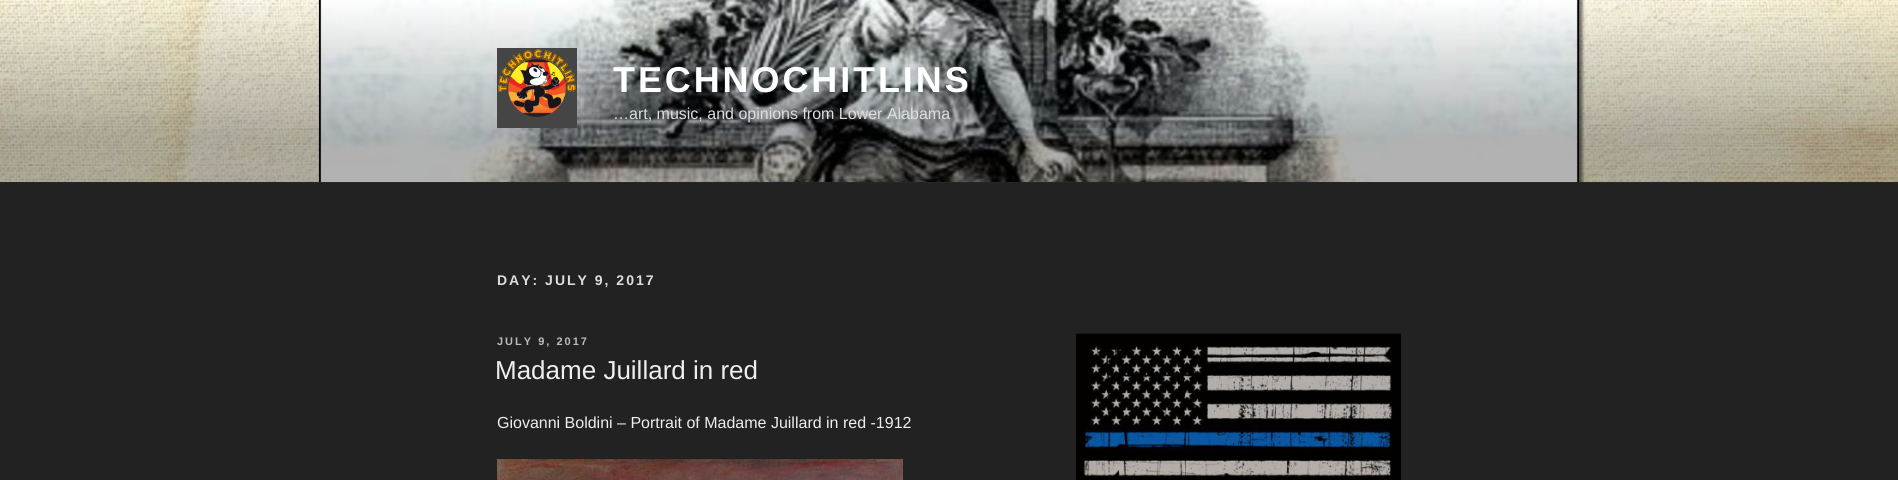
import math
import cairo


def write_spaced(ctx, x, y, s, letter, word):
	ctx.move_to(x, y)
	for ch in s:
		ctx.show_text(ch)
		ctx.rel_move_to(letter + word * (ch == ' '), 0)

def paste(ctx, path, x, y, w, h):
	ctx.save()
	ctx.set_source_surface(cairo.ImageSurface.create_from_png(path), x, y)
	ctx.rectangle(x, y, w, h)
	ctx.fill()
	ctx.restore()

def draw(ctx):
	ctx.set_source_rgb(0.133, 0.133, 0.133)
	ctx.paint()
	ctx.set_source_rgb(0.149, 0.149, 0.149)
	ctx.rectangle(0, 182, 1898, 1)
	ctx.fill()
	paste(ctx, 'media/1.png', 0, 0, 1898, 182)
	paste(ctx, 'media/2.png', 497, 48, 80, 80)
	ctx.select_font_face('Liberation Sans', cairo.FONT_SLANT_NORMAL, cairo.FONT_WEIGHT_BOLD)
	ctx.set_font_size(36)
	ctx.set_source_rgb(1, 1, 1)
	write_spaced(ctx, 613, 92, 'TECHNOCHITLINS', 2.9, 0)
	ctx.select_font_face('Liberation Sans')
	ctx.set_font_size(16)
	ctx.set_source_rgb(0.867, 0.867, 0.867)
	ctx.move_to(613, 119)
	ctx.show_text('…art, music, and opinions from Lower Alabama')
	ctx.select_font_face('Liberation Sans', cairo.FONT_SLANT_NORMAL, cairo.FONT_WEIGHT_BOLD)
	ctx.set_font_size(14)
	write_spaced(ctx, 497, 285, 'DAY: JULY 9, 2017', 2, 0)
	ctx.set_font_size(11)
	ctx.set_source_rgb(0.733, 0.733, 0.733)
	write_spaced(ctx, 497, 345, 'JULY 9, 2017', 2, 0)
	ctx.select_font_face('Liberation Sans')
	ctx.set_font_size(26)
	ctx.set_source_rgb(0.933, 0.933, 0.933)
	ctx.move_to(495, 379)
	ctx.show_text('Madame Juillard in red')
	ctx.set_font_size(16)
	ctx.move_to(497, 428)
	ctx.show_text('Giovanni Boldini – Portrait of Madame Juillard in red -1912')
	paste(ctx, 'media/3.png', 497, 459, 406, 21)
	paste(ctx, 'media/4.png', 1076, 333, 325, 147)


surface = cairo.ImageSurface(cairo.FORMAT_RGB24, 1898, 480)
ctx = cairo.Context(surface)
options = cairo.FontOptions()
options.set_hint_metrics(cairo.HINT_METRICS_OFF)
options.set_hint_style(cairo.HINT_STYLE_NONE)
ctx.set_font_options(options)
ctx.set_miter_limit(4)
draw(ctx)
surface.write_to_png('image.png')
